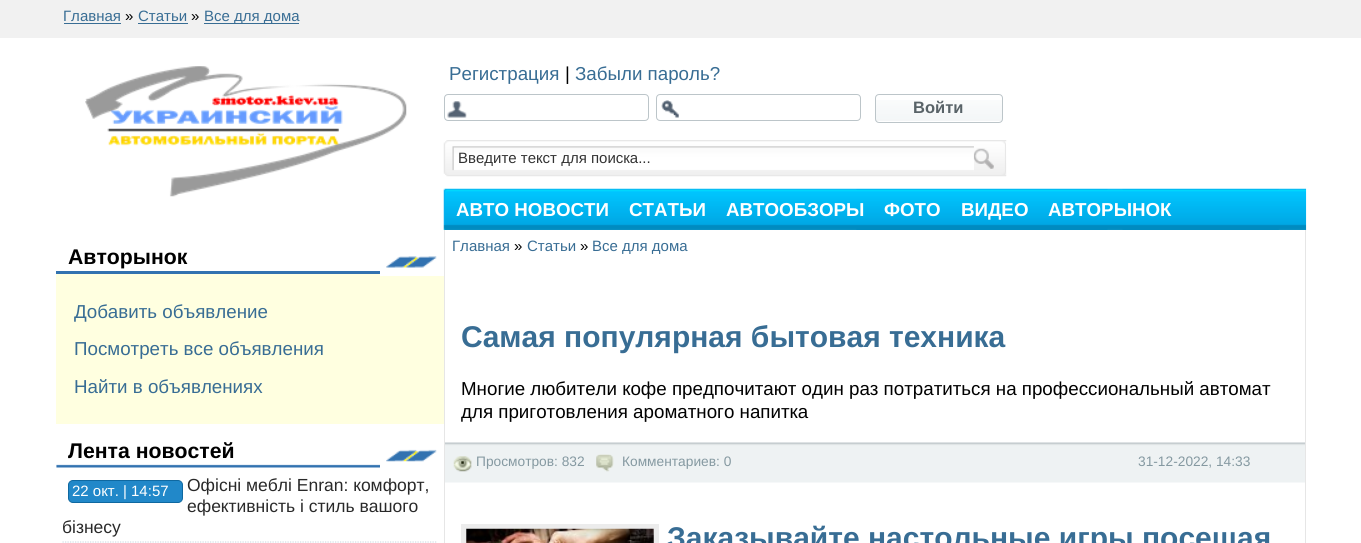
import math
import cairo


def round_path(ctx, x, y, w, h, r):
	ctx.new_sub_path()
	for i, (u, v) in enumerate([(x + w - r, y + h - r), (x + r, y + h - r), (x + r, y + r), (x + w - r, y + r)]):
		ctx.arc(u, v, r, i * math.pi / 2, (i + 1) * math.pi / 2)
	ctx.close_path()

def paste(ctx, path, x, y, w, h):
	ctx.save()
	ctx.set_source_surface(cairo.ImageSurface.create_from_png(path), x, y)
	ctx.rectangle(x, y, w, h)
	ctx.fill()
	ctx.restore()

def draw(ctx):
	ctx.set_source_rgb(1, 1, 1)
	ctx.paint()
	ctx.set_source_rgb(0.945, 0.945, 0.945)
	ctx.rectangle(0, 0, 1361, 38)
	ctx.fill()
	ctx.select_font_face('Liberation Sans')
	ctx.set_font_size(15)
	ctx.set_source_rgb(0.22, 0.427, 0.58)
	ctx.move_to(63, 21)
	ctx.show_text('Главная')
	ctx.rectangle(64, 23, 57, 1)
	ctx.fill()
	ctx.set_source_rgb(0, 0, 0)
	ctx.move_to(125, 21)
	ctx.show_text('»')
	ctx.set_source_rgb(0.22, 0.427, 0.58)
	ctx.move_to(138, 21)
	ctx.show_text('Статьи')
	ctx.rectangle(138, 23, 50, 1)
	ctx.fill()
	ctx.set_source_rgb(0, 0, 0)
	ctx.move_to(191, 21)
	ctx.show_text('»')
	ctx.set_source_rgb(0.22, 0.427, 0.58)
	ctx.rectangle(204, 23, 95, 1)
	ctx.fill()
	ctx.move_to(204, 21)
	ctx.show_text('Все для дома')
	paste(ctx, 'media/1.png', 85, 66, 322, 131)
	ctx.set_font_size(18.75)
	ctx.move_to(449, 80)
	ctx.show_text('Регистрация')
	ctx.set_source_rgb(0, 0, 0)
	ctx.move_to(565, 80)
	ctx.show_text('|')
	ctx.set_source_rgb(0.22, 0.427, 0.58)
	ctx.move_to(575, 80)
	ctx.show_text('Забыли пароль?')
	paste(ctx, 'media/2.png', 447, 101, 20, 17)
	round_path(ctx, 444.5, 94.5, 204, 26, 3.5)
	ctx.set_source_rgb(0.737, 0.773, 0.788)
	ctx.set_line_width(1)
	ctx.stroke()
	paste(ctx, 'media/3.png', 661, 100, 18, 18)
	round_path(ctx, 656.5, 94.5, 204, 26, 3.5)
	ctx.stroke()
	paste(ctx, 'media/4.png', 875, 100, 127, 21)
	round_path(ctx, 875.5, 94.5, 127, 28, 3.5)
	ctx.stroke()
	ctx.select_font_face('Liberation Sans', cairo.FONT_SLANT_NORMAL, cairo.FONT_WEIGHT_BOLD)
	ctx.set_font_size(16.5)
	ctx.set_source_rgb(0.349, 0.388, 0.408)
	ctx.move_to(913, 113)
	ctx.show_text('Войти')
	paste(ctx, 'media/5.png', 443, 140, 564, 37)
	ctx.select_font_face('Liberation Sans')
	ctx.set_font_size(15)
	ctx.set_source_rgb(0.2, 0.2, 0.2)
	ctx.move_to(458, 163)
	ctx.show_text('Введите текст для поиска...')
	paste(ctx, 'media/6.png', 973, 141, 33, 34)
	paste(ctx, 'media/7.png', 443, 188, 864, 42)
	ctx.select_font_face('Liberation Sans', cairo.FONT_SLANT_NORMAL, cairo.FONT_WEIGHT_BOLD)
	ctx.set_font_size(18.75)
	ctx.set_source_rgb(1, 1, 1)
	for x, y, s in [
		(456, 216, 'АВТО НОВОСТИ'),
		(629, 216, 'СТАТЬИ'),
		(726, 216, 'АВТООБЗОРЫ'),
		(884, 216, 'ФОТО'),
		(961, 216, 'ВИДЕО'),
		(1048, 216, 'АВТОРЫНОК'),
	]:
		ctx.move_to(x, y)
		ctx.show_text(s)
	ctx.set_source_rgb(0.196, 0.447, 0.69)
	ctx.rectangle(56, 271, 324, 3)
	ctx.fill()
	ctx.set_font_size(21.25)
	ctx.set_source_rgb(0, 0, 0)
	ctx.move_to(68, 264)
	ctx.show_text('Авторынок')
	ctx.set_source_rgb(1, 1, 0.878)
	ctx.rectangle(56, 274, 388, 150)
	ctx.fill()
	ctx.set_source_rgb(1, 1, 1)
	ctx.rectangle(380, 274, 64, 2)
	ctx.fill()
	paste(ctx, 'media/8.png', 386, 256, 51, 12)
	ctx.select_font_face('Liberation Sans')
	ctx.set_font_size(18.75)
	ctx.set_source_rgb(0.22, 0.427, 0.58)
	for x, y, s in [
		(74, 318, 'Добавить объявление'),
		(74, 355, 'Посмотреть все объявления'),
		(74, 393, 'Найти в объявлениях'),
	]:
		ctx.move_to(x, y)
		ctx.show_text(s)
	paste(ctx, 'media/9.png', 56, 464, 324, 4)
	ctx.select_font_face('Liberation Sans', cairo.FONT_SLANT_NORMAL, cairo.FONT_WEIGHT_BOLD)
	ctx.set_font_size(21.25)
	ctx.set_source_rgb(0, 0, 0)
	ctx.move_to(68, 458)
	ctx.show_text('Лента новостей')
	paste(ctx, 'media/10.png', 386, 449, 51, 13)
	ctx.new_path()
	ctx.move_to(62.5, 542)
	ctx.line_to(437.5, 542)
	ctx.set_source_rgb(0.816, 0.863, 0.894)
	ctx.set_line_width(1.2)
	ctx.set_dash([1.25, 1.25])
	ctx.stroke()
	ctx.set_source_rgb(0.129, 0.533, 0.788)
	round_path(ctx, 68.5, 480.5, 114, 22, 4.5)
	ctx.fill_preserve()
	ctx.set_source_rgb(0.059, 0.408, 0.627)
	ctx.set_line_width(1)
	ctx.set_dash([])
	ctx.stroke()
	ctx.select_font_face('Liberation Sans')
	ctx.set_font_size(15)
	ctx.set_source_rgb(1, 1, 1)
	ctx.move_to(72, 496)
	ctx.show_text('22 окт. | 14:57')
	ctx.set_font_size(17.5)
	ctx.set_source_rgb(0.161, 0.161, 0.161)
	for x, y, s in [
		(187, 491, 'Офісні меблі Enran: комфорт,'),
		(187, 512, 'ефективність і стиль вашого'),
		(62, 533, 'бізнесу'),
	]:
		ctx.move_to(x, y)
		ctx.show_text(s)
	ctx.set_source_rgb(0.902, 0.902, 0.902)
	ctx.rectangle(1305, 230, 1, 313)
	ctx.fill()
	ctx.rectangle(444, 230, 1, 313)
	ctx.fill()
	ctx.set_font_size(15)
	ctx.set_source_rgb(0.22, 0.427, 0.58)
	ctx.move_to(452, 251)
	ctx.show_text('Главная')
	ctx.set_source_rgb(0, 0, 0)
	ctx.move_to(514, 251)
	ctx.show_text('»')
	ctx.set_source_rgb(0.22, 0.427, 0.58)
	ctx.move_to(527, 251)
	ctx.show_text('Статьи')
	ctx.set_source_rgb(0, 0, 0)
	ctx.move_to(580, 251)
	ctx.show_text('»')
	ctx.set_source_rgb(0.22, 0.427, 0.58)
	ctx.move_to(592, 251)
	ctx.show_text('Все для дома')
	ctx.select_font_face('Liberation Sans', cairo.FONT_SLANT_NORMAL, cairo.FONT_WEIGHT_BOLD)
	ctx.set_font_size(30)
	ctx.move_to(461, 347)
	ctx.show_text('Самая популярная бытовая техника')
	ctx.select_font_face('Liberation Sans')
	ctx.set_font_size(18.75)
	ctx.set_source_rgb(0, 0, 0)
	ctx.move_to(461, 395)
	ctx.show_text('Многие любители кофе предпочитают один раз потратиться на профессиональный автомат')
	ctx.move_to(461, 418)
	ctx.show_text('для приготовления ароматного напитка')
	paste(ctx, 'media/11.png', 445, 442, 860, 41)
	paste(ctx, 'media/12.png', 453, 456, 19, 16)
	ctx.set_font_size(13.75)
	ctx.set_source_rgb(0.522, 0.6, 0.631)
	ctx.move_to(476, 466)
	ctx.show_text('Просмотров: 832')
	paste(ctx, 'media/13.png', 596, 454, 18, 18)
	ctx.move_to(622, 466)
	ctx.show_text('Комментариев: 0')
	ctx.move_to(1138, 466)
	ctx.show_text('31-12-2022, 14:33')
	ctx.rectangle(463.5, 526.5, 193, 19)
	ctx.set_source_rgb(0.925, 0.925, 0.925)
	ctx.set_line_width(5)
	ctx.stroke()
	paste(ctx, 'media/14.png', 466, 528, 188, 15)
	ctx.select_font_face('Liberation Sans', cairo.FONT_SLANT_NORMAL, cairo.FONT_WEIGHT_BOLD)
	ctx.set_font_size(30)
	ctx.set_source_rgb(0.22, 0.427, 0.58)
	ctx.move_to(667, 548)
	ctx.show_text('Заказывайте настольные игры посещая')


surface = cairo.ImageSurface(cairo.FORMAT_RGB24, 1361, 543)
ctx = cairo.Context(surface)
options = cairo.FontOptions()
options.set_hint_metrics(cairo.HINT_METRICS_OFF)
options.set_hint_style(cairo.HINT_STYLE_NONE)
ctx.set_font_options(options)
ctx.set_miter_limit(4)
draw(ctx)
surface.write_to_png('image.png')
